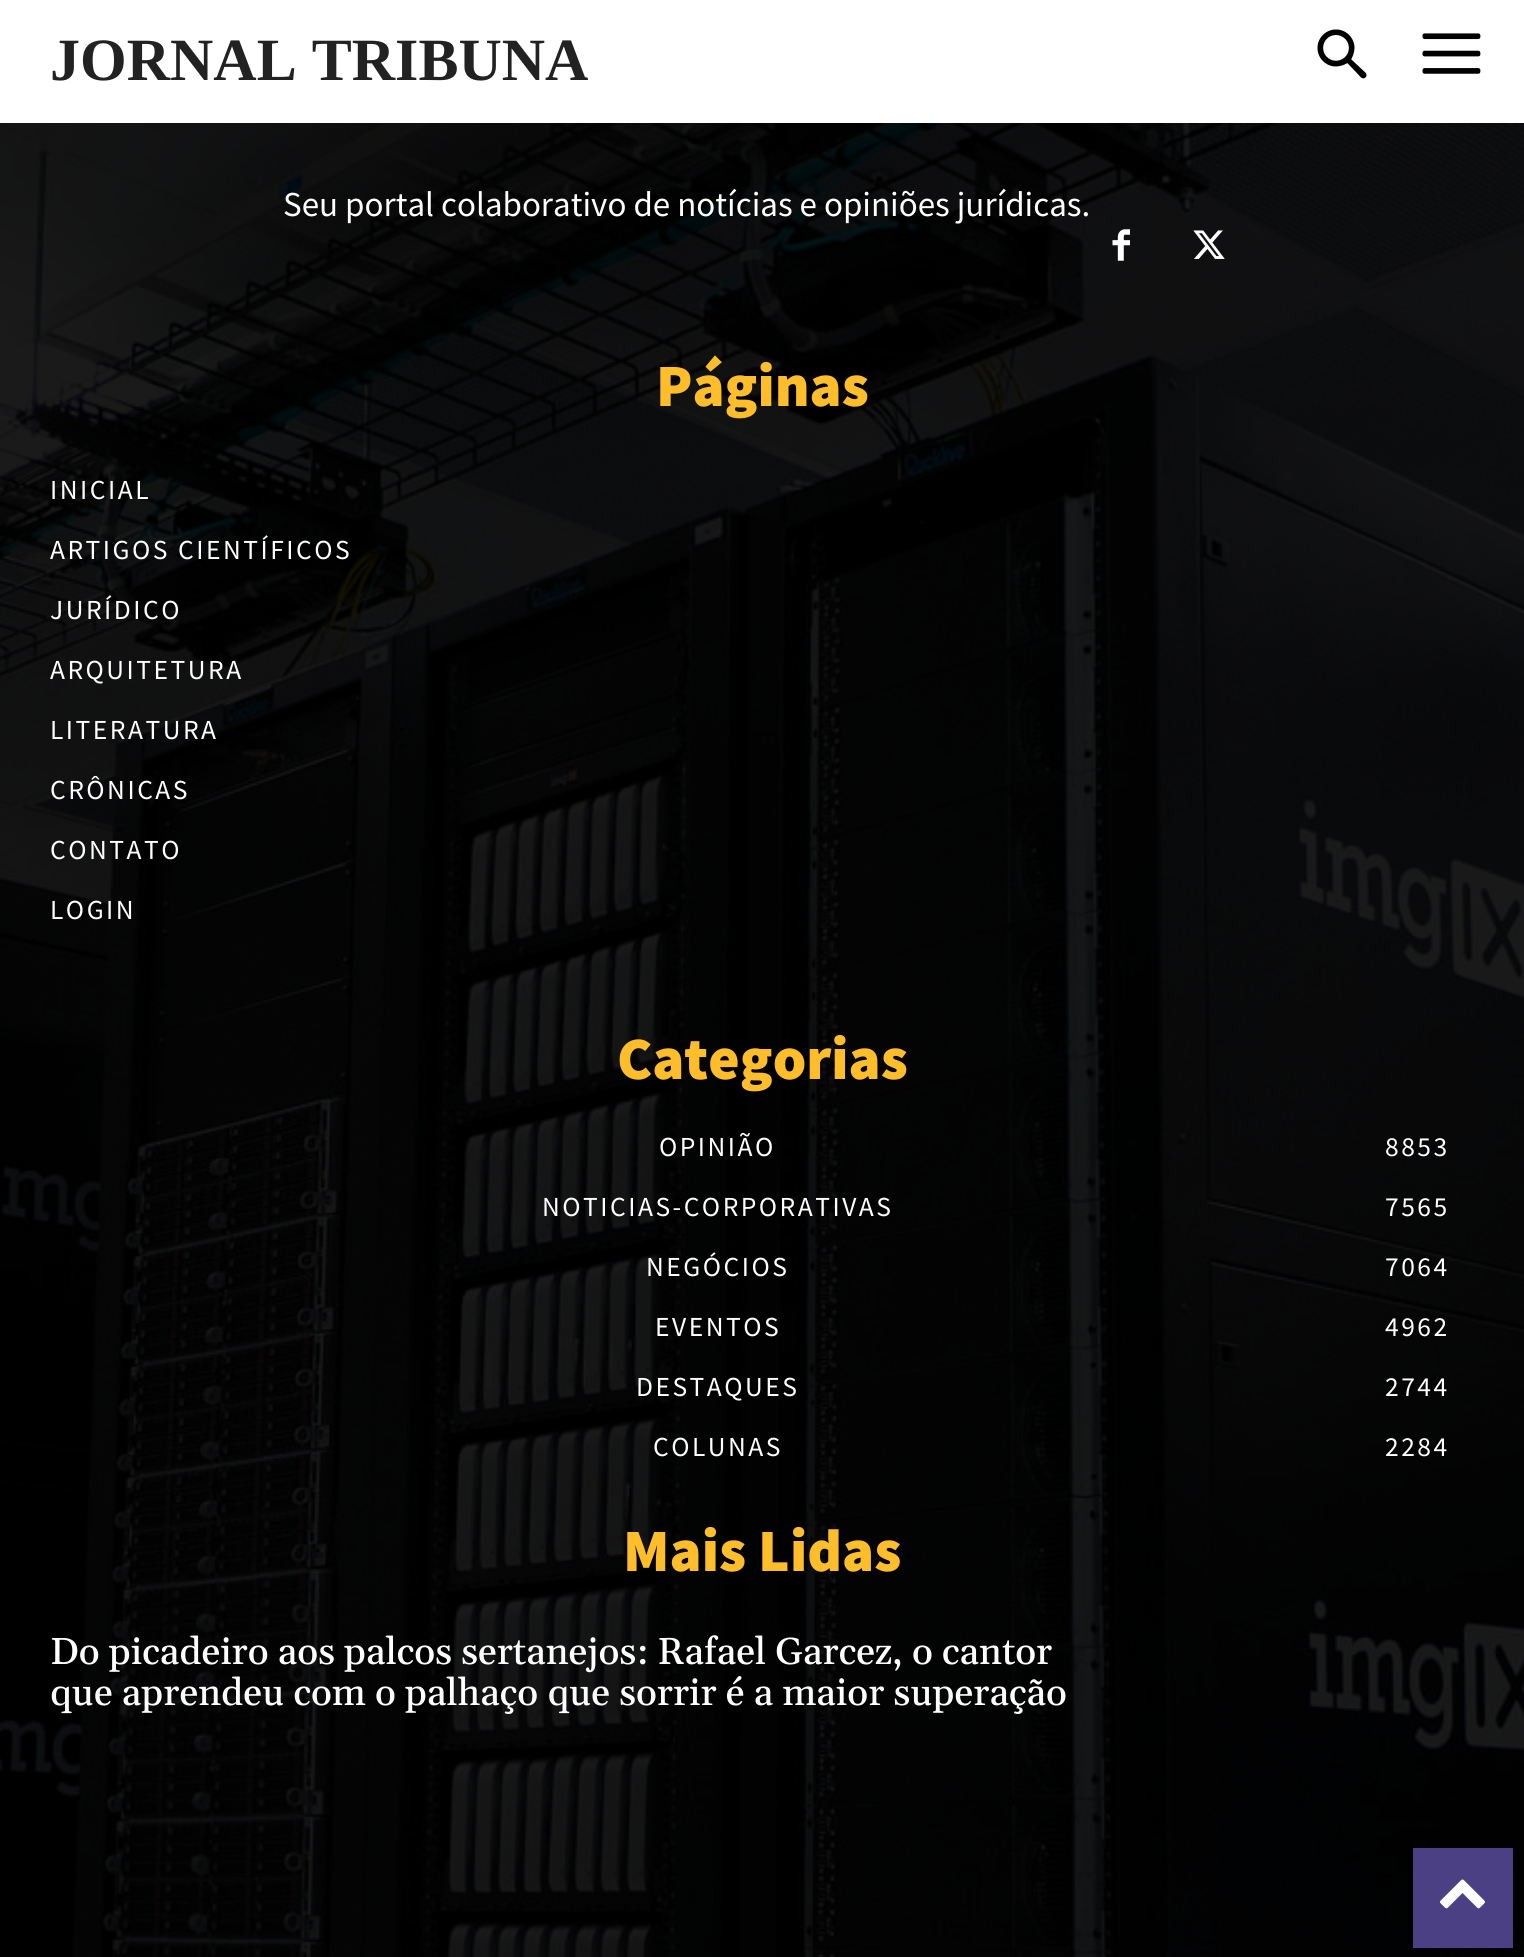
import math
import cairo


def write_spaced(ctx, x, y, s, letter, word):
	ctx.move_to(x, y)
	for ch in s:
		ctx.show_text(ch)
		ctx.rel_move_to(letter + word * (ch == ' '), 0)

def paste(ctx, path, x, y, w, h):
	ctx.save()
	ctx.set_source_surface(cairo.ImageSurface.create_from_png(path), x, y)
	ctx.rectangle(x, y, w, h)
	ctx.fill()
	ctx.restore()

def draw(ctx):
	ctx.set_source_rgb(0, 0, 0)
	ctx.paint()
	ctx.set_source_rgb(1, 1, 1)
	ctx.rectangle(0, 0, 1524, 123)
	ctx.fill()
	ctx.select_font_face('Liberation Serif', cairo.FONT_SLANT_NORMAL, cairo.FONT_WEIGHT_BOLD)
	ctx.set_font_size(60)
	ctx.set_source_rgb(0.133, 0.133, 0.133)
	ctx.move_to(50, 80)
	ctx.show_text('JORNAL TRIBUNA')
	paste(ctx, 'media/1.png', 1317, 29, 50, 50)
	paste(ctx, 'media/2.png', 1422, 33, 59, 41)
	paste(ctx, 'media/3.png', 0, 123, 1524, 1834)
	ctx.select_font_face('Source Sans Pro')
	ctx.set_font_size(35)
	ctx.set_source_rgb(1, 1, 1)
	ctx.move_to(283, 216)
	ctx.show_text('Seu portal colaborativo de notícias e opiniões jurídicas.')
	paste(ctx, 'media/4.png', 1112, 229, 18, 32)
	paste(ctx, 'media/5.png', 1193, 230, 32, 29)
	ctx.select_font_face('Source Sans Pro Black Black')
	ctx.set_font_size(60)
	ctx.set_source_rgb(0.996, 0.745, 0.169)
	ctx.move_to(656, 406)
	ctx.show_text('Páginas')
	ctx.select_font_face('Source Sans Pro')
	ctx.set_font_size(27.5)
	ctx.set_source_rgb(1, 1, 1)
	for x, y, s in [
		(50, 499, 'INICIAL'),
		(50, 559, 'ARTIGOS CIENTÍFICOS'),
		(50, 619, 'JURÍDICO'),
		(50, 679, 'ARQUITETURA'),
		(50, 739, 'LITERATURA'),
		(50, 799, 'CRÔNICAS'),
		(50, 859, 'CONTATO'),
		(50, 919, 'LOGIN'),
	]:
		write_spaced(ctx, x, y, s, 2.5, 0)
	ctx.select_font_face('Source Sans Pro Black Black')
	ctx.set_font_size(60)
	ctx.set_source_rgb(0.996, 0.745, 0.169)
	ctx.move_to(617, 1079)
	ctx.show_text('Categorias')
	ctx.select_font_face('Source Sans Pro')
	ctx.set_font_size(27.5)
	ctx.set_source_rgb(1, 1, 1)
	for x, y, s in [
		(659, 1156, 'OPINIÃO'),
		(1385, 1156, '8853'),
		(542, 1216, 'NOTICIAS-CORPORATIVAS'),
		(1385, 1216, '7565'),
		(646, 1276, 'NEGÓCIOS'),
		(1385, 1276, '7064'),
		(655, 1336, 'EVENTOS'),
		(1385, 1336, '4962'),
		(636, 1396, 'DESTAQUES'),
		(1385, 1396, '2744'),
		(653, 1456, 'COLUNAS'),
		(1385, 1456, '2284'),
	]:
		write_spaced(ctx, x, y, s, 2.5, 0)
	ctx.select_font_face('Source Sans Pro Black Black')
	ctx.set_font_size(60)
	ctx.set_source_rgb(0.996, 0.745, 0.169)
	ctx.move_to(623, 1571)
	ctx.show_text('Mais Lidas')
	ctx.select_font_face('Gelasio Medium')
	ctx.set_font_size(37.5)
	ctx.set_source_rgb(1, 1, 1)
	ctx.move_to(50, 1664)
	ctx.show_text('Do picadeiro aos palcos sertanejos: Rafael Garcez, o cantor')
	ctx.move_to(50, 1705)
	ctx.show_text('que aprendeu com o palhaço que sorrir é a maior superação')
	ctx.set_source_rgb(0.298, 0.251, 0.518)
	ctx.rectangle(1413, 1848, 100, 100)
	ctx.fill()
	paste(ctx, 'media/6.png', 1440, 1879, 45, 30)


surface = cairo.ImageSurface(cairo.FORMAT_RGB24, 1524, 1957)
ctx = cairo.Context(surface)
options = cairo.FontOptions()
options.set_hint_metrics(cairo.HINT_METRICS_OFF)
options.set_hint_style(cairo.HINT_STYLE_NONE)
ctx.set_font_options(options)
ctx.set_miter_limit(4)
draw(ctx)
surface.write_to_png('image.png')
